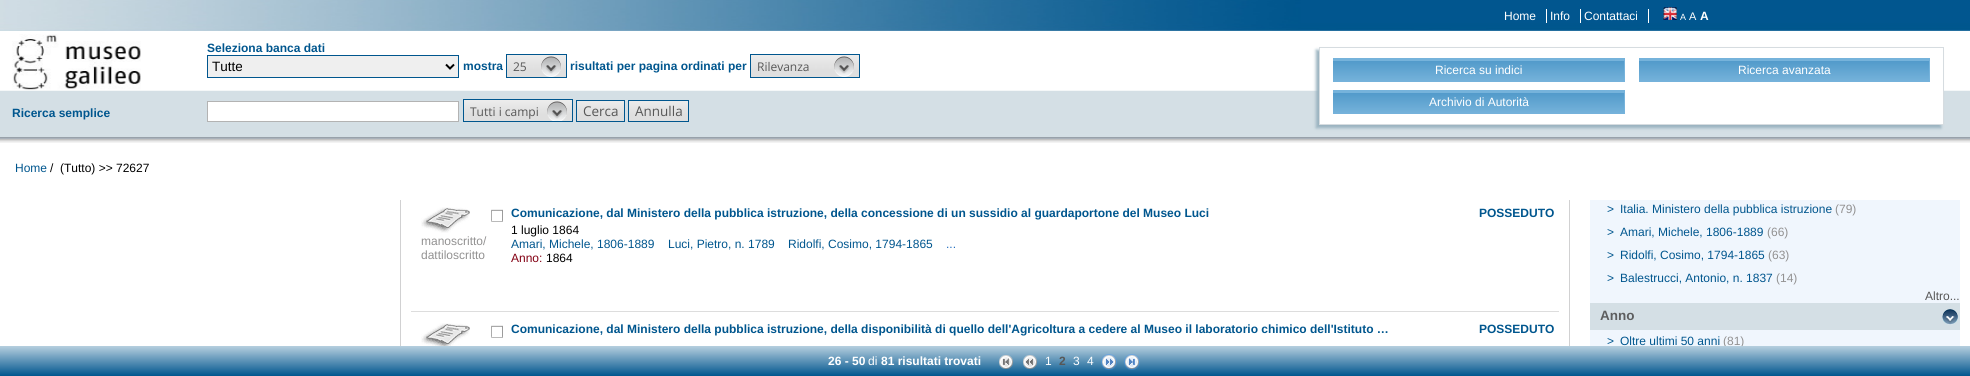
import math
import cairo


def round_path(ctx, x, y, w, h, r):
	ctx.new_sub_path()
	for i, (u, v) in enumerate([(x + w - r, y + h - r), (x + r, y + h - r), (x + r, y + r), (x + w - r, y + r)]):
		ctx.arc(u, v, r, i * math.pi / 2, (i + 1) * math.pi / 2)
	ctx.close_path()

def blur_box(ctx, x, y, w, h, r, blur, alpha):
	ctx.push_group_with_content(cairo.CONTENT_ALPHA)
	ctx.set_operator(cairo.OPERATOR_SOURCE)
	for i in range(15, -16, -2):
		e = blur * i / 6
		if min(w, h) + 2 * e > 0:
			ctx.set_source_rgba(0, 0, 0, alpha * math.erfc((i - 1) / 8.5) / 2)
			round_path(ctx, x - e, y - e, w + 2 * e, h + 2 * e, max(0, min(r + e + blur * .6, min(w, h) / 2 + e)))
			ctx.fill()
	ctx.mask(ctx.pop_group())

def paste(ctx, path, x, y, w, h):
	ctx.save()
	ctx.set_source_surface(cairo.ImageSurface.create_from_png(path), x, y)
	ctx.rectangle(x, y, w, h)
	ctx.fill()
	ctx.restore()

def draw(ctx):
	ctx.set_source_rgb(1, 1, 1)
	ctx.paint()
	ctx.rectangle(400.5, -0.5, 1169, 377)
	ctx.set_source_rgb(0.82, 0.82, 0.824)
	ctx.set_line_width(1)
	ctx.stroke()
	ctx.set_source_rgb(1, 1, 1)
	ctx.rectangle(400, 143, 1170, 57)
	ctx.fill()
	paste(ctx, 'media/1.png', 0, 0, 1970, 143)
	ctx.select_font_face('Liberation Sans')
	ctx.set_font_size(12)
	ctx.move_to(1504, 20)
	ctx.show_text('Home')
	ctx.rectangle(1546, 9, 1, 14)
	ctx.fill()
	ctx.move_to(1550, 20)
	ctx.show_text('Info')
	ctx.rectangle(1580, 9, 1, 14)
	ctx.fill()
	ctx.move_to(1584, 20)
	ctx.show_text('Contattaci')
	ctx.rectangle(1648, 9, 1, 14)
	ctx.fill()
	paste(ctx, 'media/2.png', 1663, 7, 14, 13)
	ctx.set_font_size(9)
	ctx.move_to(1680, 20)
	ctx.show_text('A')
	ctx.set_font_size(11)
	ctx.move_to(1689, 20)
	ctx.show_text('A')
	ctx.select_font_face('Liberation Sans', cairo.FONT_SLANT_NORMAL, cairo.FONT_WEIGHT_BOLD)
	ctx.set_font_size(12)
	ctx.move_to(1700, 20)
	ctx.show_text('A')
	paste(ctx, 'media/3.png', 12, 34, 129, 56)
	ctx.set_source_rgb(0, 0.337, 0.557)
	ctx.move_to(207, 52)
	ctx.show_text('Seleziona banca dati')
	ctx.set_source_rgb(0.937, 0.937, 0.937)
	ctx.rectangle(207.5, 55.5, 251, 22)
	ctx.fill_preserve()
	ctx.set_source_rgb(0, 0.337, 0.557)
	ctx.stroke()
	ctx.new_path()
	ctx.move_to(446, 64.5)
	ctx.line_to(450, 68.5)
	ctx.line_to(454, 64.5)
	ctx.set_source_rgb(0, 0, 0)
	ctx.set_line_width(2)
	ctx.stroke()
	ctx.select_font_face('Liberation Sans')
	ctx.set_font_size(13.5)
	ctx.move_to(212, 71)
	ctx.show_text('Tutte')
	ctx.select_font_face('Liberation Sans', cairo.FONT_SLANT_NORMAL, cairo.FONT_WEIGHT_BOLD)
	ctx.set_font_size(12)
	ctx.set_source_rgb(0, 0.337, 0.557)
	ctx.move_to(463, 70)
	ctx.show_text('mostra')
	paste(ctx, 'media/4.png', 507, 55, 59, 22)
	ctx.rectangle(506.5, 54.5, 60, 23)
	ctx.set_line_width(1)
	ctx.stroke()
	ctx.select_font_face('Open Sans')
	ctx.set_source_rgb(0.341, 0.341, 0.341)
	ctx.move_to(513, 71)
	ctx.show_text('25')
	paste(ctx, 'media/5.png', 541, 56, 20, 21)
	ctx.select_font_face('Liberation Sans', cairo.FONT_SLANT_NORMAL, cairo.FONT_WEIGHT_BOLD)
	ctx.set_source_rgb(0, 0.337, 0.557)
	ctx.move_to(570, 70)
	ctx.show_text('risultati per pagina ordinati per')
	paste(ctx, 'media/6.png', 751, 55, 108, 22)
	ctx.rectangle(750.5, 54.5, 109, 23)
	ctx.stroke()
	ctx.select_font_face('Open Sans')
	ctx.set_source_rgb(0.341, 0.341, 0.341)
	ctx.move_to(757, 71)
	ctx.show_text('Rilevanza')
	paste(ctx, 'media/5.png', 834, 56, 20, 21)
	ctx.select_font_face('Liberation Sans', cairo.FONT_SLANT_NORMAL, cairo.FONT_WEIGHT_BOLD)
	ctx.set_source_rgb(0, 0.337, 0.557)
	ctx.move_to(12, 117)
	ctx.show_text('Ricerca semplice')
	ctx.set_source_rgb(1, 1, 1)
	ctx.rectangle(207.5, 101.5, 251, 20)
	ctx.fill_preserve()
	ctx.set_source_rgb(0.702, 0.702, 0.702)
	ctx.stroke()
	paste(ctx, 'media/7.png', 464, 100, 108, 21)
	ctx.rectangle(463.5, 99.5, 109, 22)
	ctx.set_source_rgb(0, 0.337, 0.557)
	ctx.stroke()
	ctx.select_font_face('Open Sans')
	ctx.set_source_rgb(0.341, 0.341, 0.341)
	ctx.move_to(470, 116)
	ctx.show_text('Tutti i campi')
	paste(ctx, 'media/8.png', 547, 101, 20, 20)
	paste(ctx, 'media/9.png', 577, 101, 47, 20)
	ctx.rectangle(576.5, 100.5, 48, 21)
	ctx.set_source_rgb(0, 0.337, 0.557)
	ctx.stroke()
	ctx.set_font_size(13.5)
	ctx.set_source_rgb(0.341, 0.341, 0.341)
	ctx.move_to(583, 116)
	ctx.show_text('Cerca')
	paste(ctx, 'media/10.png', 629, 101, 59, 20)
	ctx.rectangle(628.5, 100.5, 60, 21)
	ctx.set_source_rgb(0, 0.337, 0.557)
	ctx.stroke()
	ctx.set_source_rgb(0.341, 0.341, 0.341)
	ctx.move_to(635, 116)
	ctx.show_text('Annulla')
	ctx.set_source_rgb(0.6, 0.698, 0.749)
	blur_box(ctx, 1316, 50, 625, 78, 0, 1.5, 1)
	ctx.set_source_rgb(1, 1, 1)
	ctx.rectangle(1319.5, 47.5, 624, 77)
	ctx.fill_preserve()
	ctx.set_source_rgb(0.839, 0.863, 0.878)
	ctx.stroke()
	gradient = cairo.LinearGradient(1479, 58, 1479, 82)
	gradient.add_color_stop_rgba(0, 0.302, 0.592, 0.784, 1)
	gradient.add_color_stop_rgba(1, 0.463, 0.702, 0.859, 1)
	ctx.set_source(gradient)
	ctx.rectangle(1333, 61, 291, 21)
	ctx.fill()
	ctx.save()
	ctx.rectangle(1333, 58, 292, 24)
	ctx.clip()
	ctx.set_source_rgb(0.463, 0.702, 0.859)
	ctx.set_fill_rule(cairo.FILL_RULE_EVEN_ODD)
	ctx.new_path()
	ctx.move_to(1234, -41)
	ctx.line_to(1724, -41)
	ctx.line_to(1724, 181)
	ctx.line_to(1234, 181)
	ctx.close_path()
	ctx.move_to(1332, 61)
	ctx.line_to(1624, 61)
	ctx.line_to(1624, 85)
	ctx.line_to(1332, 85)
	ctx.close_path()
	ctx.fill()
	ctx.restore()
	ctx.select_font_face('Liberation Sans')
	ctx.set_font_size(12)
	ctx.set_source_rgb(1, 1, 1)
	ctx.move_to(1435, 74)
	ctx.show_text('Ricerca su indici')
	gradient = cairo.LinearGradient(1785, 58, 1785, 82)
	gradient.add_color_stop_rgba(0, 0.302, 0.592, 0.784, 1)
	gradient.add_color_stop_rgba(1, 0.463, 0.702, 0.859, 1)
	ctx.set_source(gradient)
	ctx.rectangle(1639, 61, 290, 21)
	ctx.fill()
	ctx.save()
	ctx.rectangle(1639, 58, 291, 24)
	ctx.clip()
	ctx.set_source_rgb(0.463, 0.702, 0.859)
	ctx.set_fill_rule(cairo.FILL_RULE_EVEN_ODD)
	ctx.new_path()
	ctx.move_to(1540, -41)
	ctx.line_to(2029, -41)
	ctx.line_to(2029, 181)
	ctx.line_to(1540, 181)
	ctx.close_path()
	ctx.move_to(1638, 61)
	ctx.line_to(1929, 61)
	ctx.line_to(1929, 85)
	ctx.line_to(1638, 85)
	ctx.close_path()
	ctx.fill()
	ctx.restore()
	ctx.set_source_rgb(1, 1, 1)
	ctx.move_to(1738, 74)
	ctx.show_text('Ricerca avanzata')
	gradient = cairo.LinearGradient(1479, 90, 1479, 114)
	gradient.add_color_stop_rgba(0, 0.302, 0.592, 0.784, 1)
	gradient.add_color_stop_rgba(1, 0.463, 0.702, 0.859, 1)
	ctx.set_source(gradient)
	ctx.rectangle(1333, 93, 291, 21)
	ctx.fill()
	ctx.save()
	ctx.rectangle(1333, 90, 292, 24)
	ctx.clip()
	ctx.set_source_rgb(0.463, 0.702, 0.859)
	ctx.set_fill_rule(cairo.FILL_RULE_EVEN_ODD)
	ctx.new_path()
	ctx.move_to(1234, -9)
	ctx.line_to(1724, -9)
	ctx.line_to(1724, 213)
	ctx.line_to(1234, 213)
	ctx.close_path()
	ctx.move_to(1332, 93)
	ctx.line_to(1624, 93)
	ctx.line_to(1624, 117)
	ctx.line_to(1332, 117)
	ctx.close_path()
	ctx.fill()
	ctx.restore()
	ctx.set_source_rgb(1, 1, 1)
	ctx.move_to(1429, 106)
	ctx.show_text('Archivio di Autorità')
	ctx.set_source_rgb(0, 0.337, 0.557)
	ctx.move_to(15, 172)
	ctx.show_text('Home')
	ctx.set_source_rgb(0, 0, 0)
	ctx.move_to(50, 172)
	ctx.show_text('/')
	ctx.move_to(60, 172)
	ctx.show_text('(Tutto) >> 72627')
	ctx.set_source_rgb(0.867, 0.867, 0.867)
	ctx.rectangle(411, 311, 1148, 1)
	ctx.fill()
	paste(ctx, 'media/11.png', 491, 209, 12, 13)
	ctx.select_font_face('Liberation Sans', cairo.FONT_SLANT_NORMAL, cairo.FONT_WEIGHT_BOLD)
	ctx.set_source_rgb(0, 0.337, 0.557)
	ctx.move_to(511, 217)
	ctx.show_text('Comunicazione, dal Ministero della pubblica istruzione, della concessione di un sussidio al guardaportone del Museo Luci')
	ctx.select_font_face('Liberation Sans')
	ctx.set_source_rgb(0, 0, 0)
	ctx.move_to(511, 234)
	ctx.show_text('1 luglio 1864')
	ctx.set_source_rgb(0, 0.337, 0.557)
	for x, y, s in [
		(511, 248, 'Amari, Michele, 1806-1889'),
		(668, 248, 'Luci, Pietro, n. 1789'),
		(788, 248, 'Ridolfi, Cosimo, 1794-1865'),
	]:
		ctx.move_to(x, y)
		ctx.show_text(s)
	ctx.set_source_rgb(0.125, 0.424, 0.749)
	ctx.move_to(946, 248)
	ctx.show_text('...')
	ctx.set_source_rgb(0.514, 0, 0.078)
	ctx.move_to(511, 262)
	ctx.show_text('Anno:')
	ctx.set_source_rgb(0, 0, 0)
	ctx.move_to(546, 262)
	ctx.show_text('1864')
	ctx.select_font_face('Liberation Sans', cairo.FONT_SLANT_NORMAL, cairo.FONT_WEIGHT_BOLD)
	ctx.set_source_rgb(0, 0.337, 0.557)
	ctx.move_to(1479, 217)
	ctx.show_text('POSSEDUTO')
	paste(ctx, 'media/12.png', 421, 207, 49, 26)
	ctx.select_font_face('Liberation Sans')
	ctx.set_source_rgb(0.573, 0.569, 0.569)
	ctx.move_to(421, 245)
	ctx.show_text('manoscritto/')
	ctx.move_to(421, 259)
	ctx.show_text('dattiloscritto')
	paste(ctx, 'media/13.png', 421, 323, 49, 23)
	paste(ctx, 'media/11.png', 491, 325, 12, 13)
	ctx.select_font_face('Liberation Sans', cairo.FONT_SLANT_NORMAL, cairo.FONT_WEIGHT_BOLD)
	ctx.set_source_rgb(0, 0.337, 0.557)
	ctx.move_to(511, 333)
	ctx.show_text('Comunicazione, dal Ministero della pubblica istruzione, della disponibilità di quello dell\'Agricoltura a cedere al Museo il laboratorio chimico dell\'Istituto …')
	ctx.move_to(1479, 333)
	ctx.show_text('POSSEDUTO')
	ctx.set_source_rgb(0.941, 0.961, 0.992)
	ctx.rectangle(1590, 330, 370, 16)
	ctx.fill()
	ctx.select_font_face('Liberation Sans')
	ctx.set_source_rgb(0.573, 0.569, 0.569)
	ctx.move_to(1723, 345)
	ctx.show_text('(81)')
	gradient = cairo.LinearGradient(985, 334, 985, 376)
	gradient.add_color_stop_rgba(0, 1, 1, 1, 1)
	gradient.add_color_stop_rgba(1, 0, 0.337, 0.557, 1)
	ctx.set_source(gradient)
	ctx.rectangle(0, 346, 1970, 30)
	ctx.fill()
	ctx.select_font_face('Liberation Sans', cairo.FONT_SLANT_NORMAL, cairo.FONT_WEIGHT_BOLD)
	ctx.set_source_rgb(1, 1, 1)
	ctx.move_to(828, 365)
	ctx.show_text('26 - 50')
	ctx.select_font_face('Liberation Sans')
	ctx.move_to(868, 365)
	ctx.show_text('di')
	ctx.select_font_face('Liberation Sans', cairo.FONT_SLANT_NORMAL, cairo.FONT_WEIGHT_BOLD)
	ctx.move_to(881, 365)
	ctx.show_text('81 risultati trovati')
	paste(ctx, 'media/14.png', 999, 355, 14, 14)
	paste(ctx, 'media/15.png', 1023, 355, 14, 14)
	ctx.select_font_face('Liberation Sans')
	ctx.move_to(1045, 365)
	ctx.show_text('1')
	ctx.select_font_face('Liberation Sans', cairo.FONT_SLANT_NORMAL, cairo.FONT_WEIGHT_BOLD)
	ctx.set_source_rgb(0.341, 0.341, 0.341)
	ctx.move_to(1059, 365)
	ctx.show_text('2')
	ctx.select_font_face('Liberation Sans')
	ctx.set_source_rgb(1, 1, 1)
	ctx.move_to(1073, 365)
	ctx.show_text('3')
	ctx.move_to(1087, 365)
	ctx.show_text('4')
	paste(ctx, 'media/16.png', 1101, 354, 16, 16)
	paste(ctx, 'media/17.png', 1124, 354, 16, 16)
	ctx.set_source_rgb(0.941, 0.961, 0.992)
	ctx.rectangle(1590, 200, 370, 103)
	ctx.fill()
	ctx.set_source_rgb(0, 0.337, 0.557)
	ctx.move_to(1607, 213)
	ctx.show_text('>')
	ctx.move_to(1620, 213)
	ctx.show_text('Italia. Ministero della pubblica istruzione')
	ctx.set_source_rgb(0.573, 0.569, 0.569)
	ctx.move_to(1835, 213)
	ctx.show_text('(79)')
	ctx.set_source_rgb(0, 0.337, 0.557)
	ctx.move_to(1607, 236)
	ctx.show_text('>')
	ctx.move_to(1620, 236)
	ctx.show_text('Amari, Michele, 1806-1889')
	ctx.set_source_rgb(0.573, 0.569, 0.569)
	ctx.move_to(1767, 236)
	ctx.show_text('(66)')
	ctx.set_source_rgb(0, 0.337, 0.557)
	ctx.move_to(1607, 259)
	ctx.show_text('>')
	ctx.move_to(1620, 259)
	ctx.show_text('Ridolfi, Cosimo, 1794-1865')
	ctx.set_source_rgb(0.573, 0.569, 0.569)
	ctx.move_to(1768, 259)
	ctx.show_text('(63)')
	ctx.set_source_rgb(0, 0.337, 0.557)
	ctx.move_to(1607, 282)
	ctx.show_text('>')
	ctx.move_to(1620, 282)
	ctx.show_text('Balestrucci, Antonio, n. 1837')
	ctx.set_source_rgb(0.573, 0.569, 0.569)
	ctx.move_to(1776, 282)
	ctx.show_text('(14)')
	ctx.set_source_rgb(0.341, 0.341, 0.341)
	ctx.move_to(1925, 300)
	ctx.show_text('Altro...')
	ctx.set_source_rgb(0.831, 0.875, 0.898)
	ctx.rectangle(1590, 303, 370, 27)
	ctx.fill()
	paste(ctx, 'media/18.png', 1942, 309, 16, 16)
	ctx.select_font_face('Liberation Sans', cairo.FONT_SLANT_NORMAL, cairo.FONT_WEIGHT_BOLD)
	ctx.set_font_size(13.5)
	ctx.set_source_rgb(0.365, 0.369, 0.373)
	ctx.move_to(1600, 320)
	ctx.show_text('Anno')
	ctx.select_font_face('Liberation Sans')
	ctx.set_font_size(12)
	ctx.set_source_rgb(0, 0.337, 0.557)
	ctx.move_to(1607, 345)
	ctx.show_text('>')
	ctx.move_to(1620, 345)
	ctx.show_text('Oltre ultimi 50 anni')


surface = cairo.ImageSurface(cairo.FORMAT_RGB24, 1970, 376)
ctx = cairo.Context(surface)
options = cairo.FontOptions()
options.set_hint_metrics(cairo.HINT_METRICS_OFF)
options.set_hint_style(cairo.HINT_STYLE_NONE)
ctx.set_font_options(options)
ctx.set_miter_limit(4)
draw(ctx)
surface.write_to_png('image.png')
